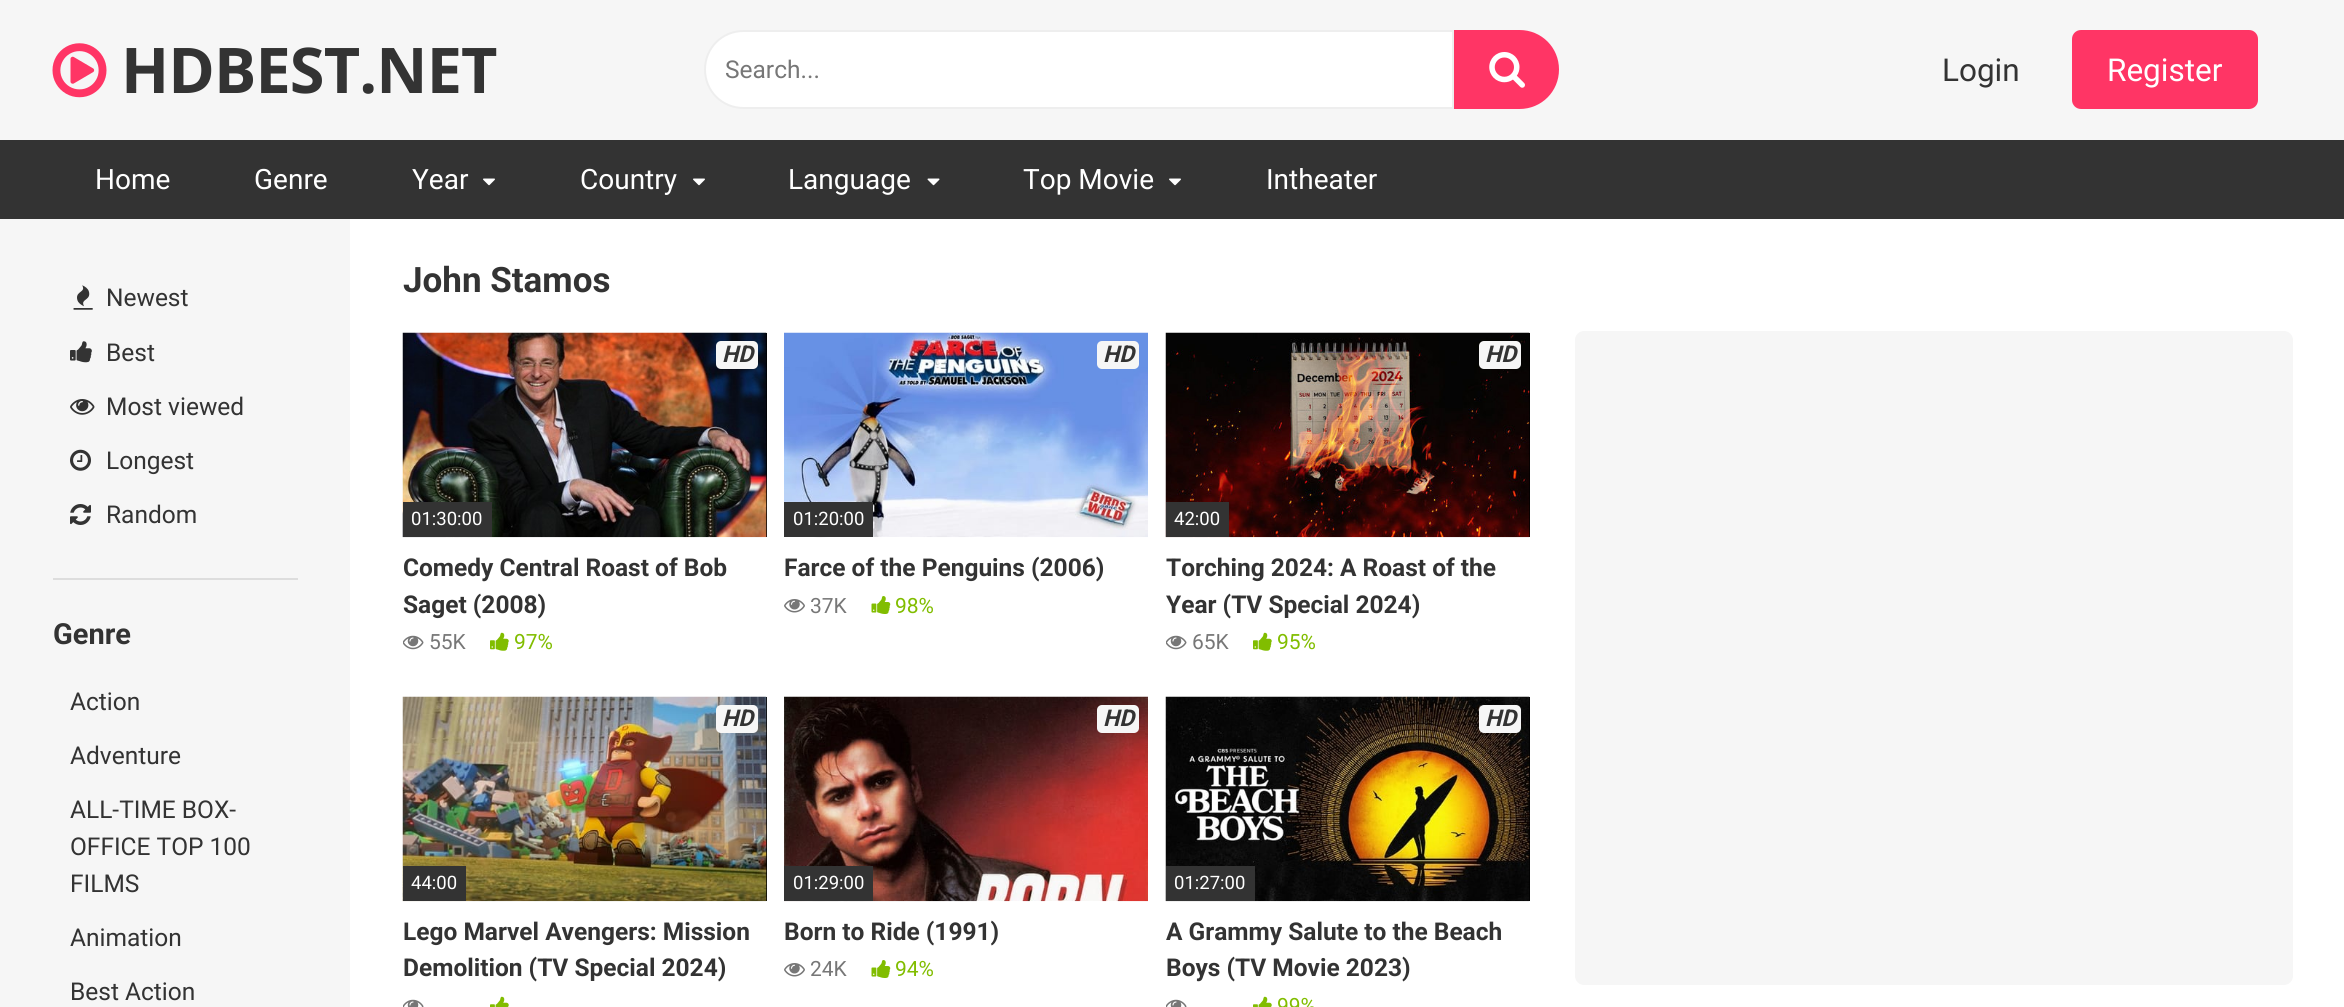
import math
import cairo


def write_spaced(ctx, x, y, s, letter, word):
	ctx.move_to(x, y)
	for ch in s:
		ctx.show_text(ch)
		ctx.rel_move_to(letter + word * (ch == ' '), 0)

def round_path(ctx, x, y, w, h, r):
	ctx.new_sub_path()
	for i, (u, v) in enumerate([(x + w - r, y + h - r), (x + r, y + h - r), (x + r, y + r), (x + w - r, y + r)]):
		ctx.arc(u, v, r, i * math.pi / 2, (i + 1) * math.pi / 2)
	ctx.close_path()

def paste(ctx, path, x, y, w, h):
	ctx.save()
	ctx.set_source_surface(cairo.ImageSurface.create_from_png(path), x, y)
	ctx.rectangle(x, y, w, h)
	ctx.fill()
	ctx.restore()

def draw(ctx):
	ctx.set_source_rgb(0.961, 0.961, 0.961)
	ctx.paint()
	paste(ctx, 'media/1.png', 52, 43, 55, 55)
	ctx.select_font_face('Open Sans', cairo.FONT_SLANT_NORMAL, cairo.FONT_WEIGHT_BOLD)
	ctx.set_font_size(63)
	ctx.set_source_rgb(0.2, 0.2, 0.2)
	write_spaced(ctx, 121, 93, 'HDBEST.NET', -0.9, 0)
	ctx.select_font_face('Roboto')
	ctx.set_font_size(31.5)
	ctx.move_to(1942, 81)
	ctx.show_text('Login')
	ctx.set_source_rgb(1, 0.208, 0.396)
	round_path(ctx, 2072, 30, 186, 79, 9)
	ctx.fill()
	ctx.set_source_rgb(1, 1, 1)
	ctx.move_to(2107, 81)
	ctx.show_text('Register')
	ctx.set_source_rgb(0.2, 0.2, 0.2)
	ctx.rectangle(0, 140, 2344, 79)
	ctx.fill()
	ctx.set_font_size(28)
	ctx.set_source_rgb(1, 1, 1)
	for x, y, s in [
		(95, 189, 'Home'),
		(254, 189, 'Genre'),
		(412, 189, 'Year'),
	]:
		ctx.move_to(x, y)
		ctx.show_text(s)
	paste(ctx, 'media/2.png', 483, 178, 12, 8)
	ctx.move_to(580, 189)
	ctx.show_text('Country')
	paste(ctx, 'media/2.png', 693, 178, 12, 8)
	ctx.move_to(788, 189)
	ctx.show_text('Language')
	paste(ctx, 'media/3.png', 927, 178, 13, 8)
	ctx.move_to(1023, 189)
	ctx.show_text('Top Movie')
	paste(ctx, 'media/2.png', 1169, 178, 12, 8)
	ctx.move_to(1266, 189)
	ctx.show_text('Intheater')
	ctx.new_path()
	ctx.move_to(743.5, 31)
	ctx.line_to(1453, 31)
	ctx.line_to(1453, 108)
	ctx.line_to(743.5, 108)
	ctx.curve_to(722, 108, 705, 91, 705, 69.5)
	ctx.curve_to(705, 48, 722, 31, 743.5, 31)
	ctx.close_path()
	ctx.fill_preserve()
	ctx.set_source_rgb(0.933, 0.933, 0.933)
	ctx.stroke()
	ctx.set_font_size(24.5)
	ctx.set_source_rgb(0.467, 0.467, 0.467)
	ctx.move_to(725, 78)
	ctx.show_text('Search...')
	ctx.set_source_rgb(1, 0.208, 0.396)
	ctx.new_path()
	ctx.move_to(1454, 30)
	ctx.line_to(1519.5, 30)
	ctx.curve_to(1541.5, 30, 1559, 47.5, 1559, 69.5)
	ctx.curve_to(1559, 91.5, 1541.5, 109, 1519.5, 109)
	ctx.line_to(1454, 109)
	ctx.close_path()
	ctx.fill()
	paste(ctx, 'media/4.png', 1489, 52, 36, 36)
	ctx.set_source_rgb(0.867, 0.867, 0.867)
	ctx.rectangle(53, 578, 245, 2)
	ctx.fill()
	paste(ctx, 'media/5.png', 73, 285, 20, 25)
	ctx.set_source_rgb(0.2, 0.2, 0.2)
	ctx.move_to(106, 306)
	ctx.show_text('Newest')
	paste(ctx, 'media/6.png', 70, 341, 22, 22)
	ctx.move_to(106, 361)
	ctx.show_text('Best')
	paste(ctx, 'media/7.png', 70, 399, 25, 16)
	ctx.move_to(106, 415)
	ctx.show_text('Most viewed')
	paste(ctx, 'media/8.png', 70, 449, 21, 22)
	ctx.move_to(106, 469)
	ctx.show_text('Longest')
	paste(ctx, 'media/9.png', 70, 504, 21, 21)
	ctx.move_to(106, 523)
	ctx.show_text('Random')
	ctx.select_font_face('Roboto', cairo.FONT_SLANT_NORMAL, cairo.FONT_WEIGHT_BOLD)
	ctx.set_font_size(29)
	ctx.move_to(53, 644)
	ctx.show_text('Genre')
	ctx.select_font_face('Roboto')
	ctx.set_font_size(24.5)
	for x, y, s in [
		(70, 710, 'Action'),
		(70, 764, 'Adventure'),
		(70, 818, 'ALL-TIME BOX-'),
		(70, 855, 'OFFICE TOP 100'),
		(70, 892, 'FILMS'),
		(70, 946, 'Animation'),
		(70, 1000, 'Best Action'),
	]:
		ctx.move_to(x, y)
		ctx.show_text(s)
	ctx.set_source_rgb(1, 1, 1)
	ctx.rectangle(350, 219, 1994, 788)
	ctx.fill()
	ctx.select_font_face('Roboto', cairo.FONT_SLANT_NORMAL, cairo.FONT_WEIGHT_BOLD)
	ctx.set_font_size(35)
	ctx.set_source_rgb(0.2, 0.2, 0.2)
	ctx.move_to(403, 292)
	ctx.show_text('John Stamos')
	ctx.set_source_rgb(0, 0, 0)
	ctx.rectangle(766, 333, 1, 204)
	ctx.fill()
	paste(ctx, 'media/10.png', 402, 332, 365, 206)
	ctx.set_source_rgb(0.961, 0.961, 0.961)
	round_path(ctx, 716, 341, 42, 28, 5)
	ctx.fill()
	ctx.select_font_face('Roboto', cairo.FONT_SLANT_ITALIC, cairo.FONT_WEIGHT_BOLD)
	ctx.set_font_size(23)
	ctx.set_source_rgb(0.2, 0.2, 0.2)
	ctx.move_to(722, 362)
	ctx.show_text('HD')
	ctx.rectangle(403, 502, 89, 35)
	ctx.fill()
	ctx.select_font_face('Roboto')
	ctx.set_font_size(18.5)
	ctx.set_source_rgb(1, 1, 1)
	ctx.move_to(411, 525)
	ctx.show_text('01:30:00')
	ctx.select_font_face('Roboto', cairo.FONT_SLANT_NORMAL, cairo.FONT_WEIGHT_BOLD)
	ctx.set_font_size(24.5)
	ctx.set_source_rgb(0.2, 0.2, 0.2)
	ctx.move_to(403, 576)
	ctx.show_text('Comedy Central Roast of Bob')
	ctx.move_to(403, 613)
	ctx.show_text('Saget (2008)')
	paste(ctx, 'media/11.png', 403, 635, 21, 15)
	ctx.select_font_face('Roboto')
	ctx.set_font_size(21)
	ctx.set_source_rgb(0.467, 0.467, 0.467)
	ctx.move_to(429, 649)
	ctx.show_text('55K')
	paste(ctx, 'media/12.png', 490, 632, 19, 19)
	ctx.set_source_rgb(0.506, 0.741, 0)
	ctx.move_to(514, 649)
	ctx.show_text('97%')
	paste(ctx, 'media/13.png', 784, 332, 364, 206)
	ctx.set_source_rgb(0.961, 0.961, 0.961)
	round_path(ctx, 1097, 341, 42, 28, 5)
	ctx.fill()
	ctx.select_font_face('Roboto', cairo.FONT_SLANT_ITALIC, cairo.FONT_WEIGHT_BOLD)
	ctx.set_font_size(23)
	ctx.set_source_rgb(0.2, 0.2, 0.2)
	ctx.move_to(1103, 362)
	ctx.show_text('HD')
	ctx.rectangle(784, 502, 89, 35)
	ctx.fill()
	ctx.select_font_face('Roboto')
	ctx.set_font_size(18.5)
	ctx.set_source_rgb(1, 1, 1)
	ctx.move_to(793, 525)
	ctx.show_text('01:20:00')
	ctx.select_font_face('Roboto', cairo.FONT_SLANT_NORMAL, cairo.FONT_WEIGHT_BOLD)
	ctx.set_font_size(24.5)
	ctx.set_source_rgb(0.2, 0.2, 0.2)
	ctx.move_to(784, 576)
	ctx.show_text('Farce of the Penguins (2006)')
	paste(ctx, 'media/14.png', 784, 599, 21, 14)
	ctx.select_font_face('Roboto')
	ctx.set_font_size(21)
	ctx.set_source_rgb(0.467, 0.467, 0.467)
	ctx.move_to(810, 613)
	ctx.show_text('37K')
	paste(ctx, 'media/15.png', 871, 596, 20, 18)
	ctx.set_source_rgb(0.506, 0.741, 0)
	ctx.move_to(895, 613)
	ctx.show_text('98%')
	ctx.set_source_rgb(0, 0, 0)
	ctx.rectangle(1529, 333, 1, 204)
	ctx.fill()
	paste(ctx, 'media/16.png', 1165, 332, 365, 206)
	ctx.set_source_rgb(0.961, 0.961, 0.961)
	round_path(ctx, 1479, 341, 42, 28, 5)
	ctx.fill()
	ctx.select_font_face('Roboto', cairo.FONT_SLANT_ITALIC, cairo.FONT_WEIGHT_BOLD)
	ctx.set_font_size(23)
	ctx.set_source_rgb(0.2, 0.2, 0.2)
	ctx.move_to(1485, 362)
	ctx.show_text('HD')
	ctx.rectangle(1166, 502, 63, 35)
	ctx.fill()
	ctx.select_font_face('Roboto')
	ctx.set_font_size(18.5)
	ctx.set_source_rgb(1, 1, 1)
	ctx.move_to(1174, 525)
	ctx.show_text('42:00')
	ctx.select_font_face('Roboto', cairo.FONT_SLANT_NORMAL, cairo.FONT_WEIGHT_BOLD)
	ctx.set_font_size(24.5)
	ctx.set_source_rgb(0.2, 0.2, 0.2)
	ctx.move_to(1166, 576)
	ctx.show_text('Torching 2024: A Roast of the')
	ctx.move_to(1166, 613)
	ctx.show_text('Year (TV Special 2024)')
	paste(ctx, 'media/11.png', 1166, 635, 21, 15)
	ctx.select_font_face('Roboto')
	ctx.set_font_size(21)
	ctx.set_source_rgb(0.467, 0.467, 0.467)
	ctx.move_to(1192, 649)
	ctx.show_text('65K')
	paste(ctx, 'media/12.png', 1253, 632, 19, 19)
	ctx.set_source_rgb(0.506, 0.741, 0)
	ctx.move_to(1277, 649)
	ctx.show_text('95%')
	ctx.set_source_rgb(0, 0, 0)
	ctx.rectangle(766, 697, 1, 204)
	ctx.fill()
	paste(ctx, 'media/17.png', 402, 696, 365, 206)
	ctx.set_source_rgb(0.961, 0.961, 0.961)
	round_path(ctx, 716, 705, 42, 28, 5)
	ctx.fill()
	ctx.select_font_face('Roboto', cairo.FONT_SLANT_ITALIC, cairo.FONT_WEIGHT_BOLD)
	ctx.set_font_size(23)
	ctx.set_source_rgb(0.2, 0.2, 0.2)
	ctx.move_to(722, 726)
	ctx.show_text('HD')
	ctx.rectangle(403, 866, 63, 35)
	ctx.fill()
	ctx.select_font_face('Roboto')
	ctx.set_font_size(18.5)
	ctx.set_source_rgb(1, 1, 1)
	ctx.move_to(411, 889)
	ctx.show_text('44:00')
	ctx.select_font_face('Roboto', cairo.FONT_SLANT_NORMAL, cairo.FONT_WEIGHT_BOLD)
	ctx.set_font_size(24.5)
	ctx.set_source_rgb(0.2, 0.2, 0.2)
	ctx.move_to(403, 940)
	ctx.show_text('Lego Marvel Avengers: Mission')
	ctx.move_to(403, 976)
	ctx.show_text('Demolition (TV Special 2024)')
	paste(ctx, 'media/18.png', 403, 999, 21, 8)
	paste(ctx, 'media/19.png', 490, 996, 19, 11)
	paste(ctx, 'media/20.png', 784, 696, 364, 206)
	ctx.set_source_rgb(0.961, 0.961, 0.961)
	round_path(ctx, 1097, 705, 42, 28, 5)
	ctx.fill()
	ctx.select_font_face('Roboto', cairo.FONT_SLANT_ITALIC, cairo.FONT_WEIGHT_BOLD)
	ctx.set_font_size(23)
	ctx.set_source_rgb(0.2, 0.2, 0.2)
	ctx.move_to(1103, 726)
	ctx.show_text('HD')
	ctx.rectangle(784, 866, 89, 35)
	ctx.fill()
	ctx.select_font_face('Roboto')
	ctx.set_font_size(18.5)
	ctx.set_source_rgb(1, 1, 1)
	ctx.move_to(793, 889)
	ctx.show_text('01:29:00')
	ctx.select_font_face('Roboto', cairo.FONT_SLANT_NORMAL, cairo.FONT_WEIGHT_BOLD)
	ctx.set_font_size(24.5)
	ctx.set_source_rgb(0.2, 0.2, 0.2)
	ctx.move_to(784, 940)
	ctx.show_text('Born to Ride (1991)')
	paste(ctx, 'media/21.png', 784, 963, 21, 14)
	ctx.select_font_face('Roboto')
	ctx.set_font_size(21)
	ctx.set_source_rgb(0.467, 0.467, 0.467)
	ctx.move_to(810, 976)
	ctx.show_text('24K')
	paste(ctx, 'media/22.png', 871, 960, 20, 18)
	ctx.set_source_rgb(0.506, 0.741, 0)
	ctx.move_to(895, 976)
	ctx.show_text('94%')
	ctx.set_source_rgb(0, 0, 0)
	ctx.rectangle(1529, 697, 1, 204)
	ctx.fill()
	paste(ctx, 'media/23.png', 1165, 696, 365, 206)
	ctx.set_source_rgb(0.961, 0.961, 0.961)
	round_path(ctx, 1479, 705, 42, 28, 5)
	ctx.fill()
	ctx.select_font_face('Roboto', cairo.FONT_SLANT_ITALIC, cairo.FONT_WEIGHT_BOLD)
	ctx.set_font_size(23)
	ctx.set_source_rgb(0.2, 0.2, 0.2)
	ctx.move_to(1485, 726)
	ctx.show_text('HD')
	ctx.rectangle(1166, 866, 89, 35)
	ctx.fill()
	ctx.select_font_face('Roboto')
	ctx.set_font_size(18.5)
	ctx.set_source_rgb(1, 1, 1)
	ctx.move_to(1174, 889)
	ctx.show_text('01:27:00')
	ctx.select_font_face('Roboto', cairo.FONT_SLANT_NORMAL, cairo.FONT_WEIGHT_BOLD)
	ctx.set_font_size(24.5)
	ctx.set_source_rgb(0.2, 0.2, 0.2)
	ctx.move_to(1166, 940)
	ctx.show_text('A Grammy Salute to the Beach')
	ctx.move_to(1166, 976)
	ctx.show_text('Boys (TV Movie 2023)')
	paste(ctx, 'media/18.png', 1166, 999, 21, 8)
	paste(ctx, 'media/24.png', 1253, 996, 19, 11)
	ctx.select_font_face('Roboto')
	ctx.set_font_size(21)
	ctx.set_source_rgb(0.506, 0.741, 0)
	ctx.move_to(1277, 1013)
	ctx.show_text('99%')
	ctx.set_source_rgb(0.961, 0.961, 0.961)
	round_path(ctx, 1575, 331, 718, 654, 9)
	ctx.fill()


surface = cairo.ImageSurface(cairo.FORMAT_RGB24, 2344, 1007)
ctx = cairo.Context(surface)
options = cairo.FontOptions()
options.set_hint_metrics(cairo.HINT_METRICS_OFF)
options.set_hint_style(cairo.HINT_STYLE_NONE)
ctx.set_font_options(options)
ctx.set_miter_limit(4)
draw(ctx)
surface.write_to_png('image.png')
